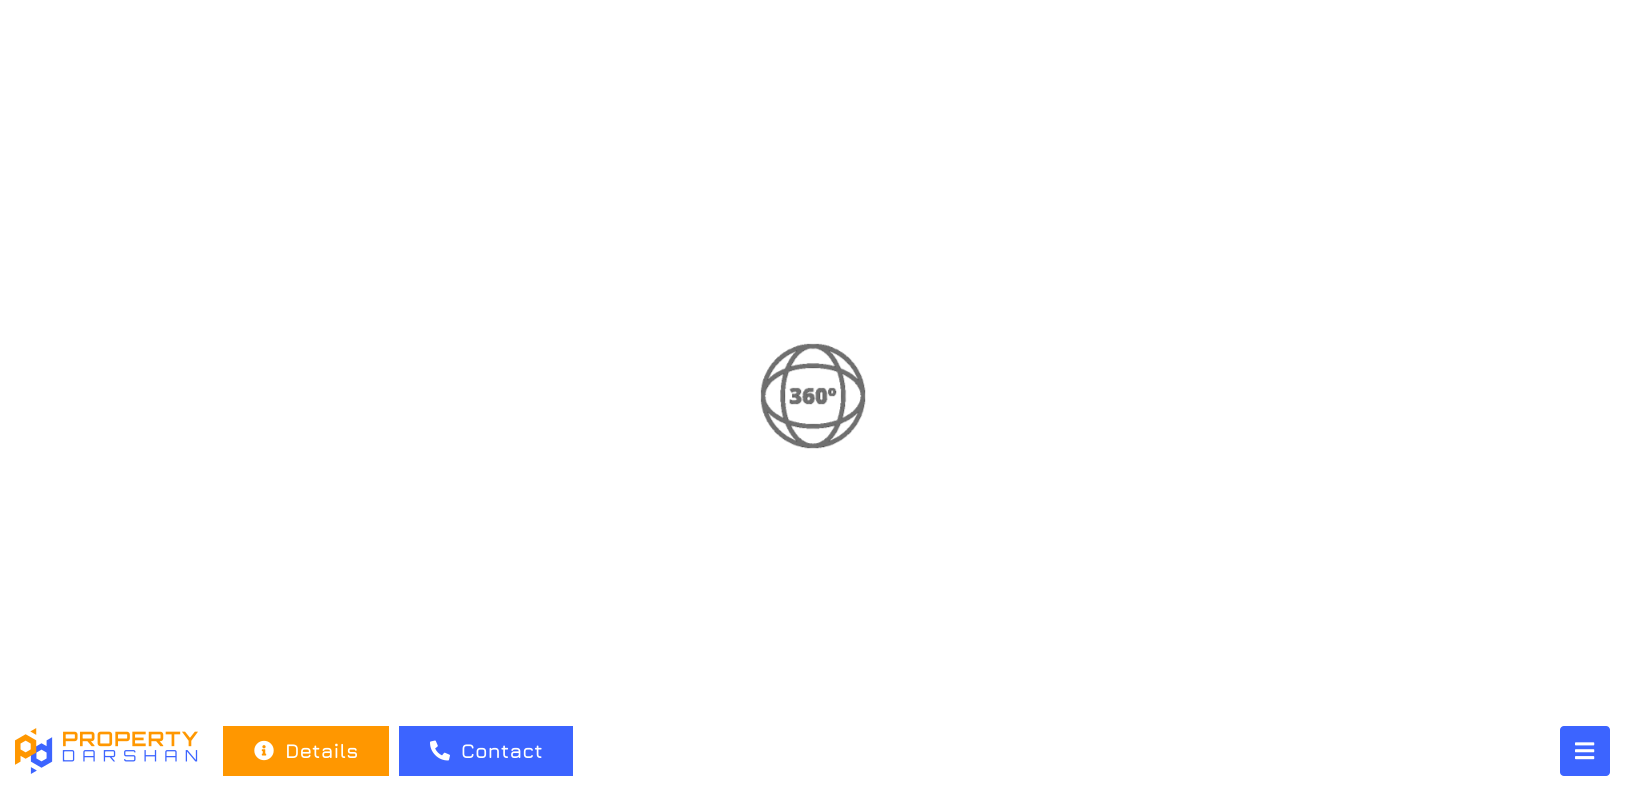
import math
import cairo


def round_path(ctx, x, y, w, h, r):
	ctx.new_sub_path()
	for i, (u, v) in enumerate([(x + w - r, y + h - r), (x + r, y + h - r), (x + r, y + r), (x + w - r, y + r)]):
		ctx.arc(u, v, r, i * math.pi / 2, (i + 1) * math.pi / 2)
	ctx.close_path()

def paste(ctx, path, x, y, w, h):
	ctx.save()
	ctx.set_source_surface(cairo.ImageSurface.create_from_png(path), x, y)
	ctx.rectangle(x, y, w, h)
	ctx.fill()
	ctx.restore()

def draw(ctx):
	ctx.set_source_rgb(1, 1, 1)
	ctx.paint()
	paste(ctx, 'media/1.png', 760, 343, 106, 106)
	paste(ctx, 'media/2.png', 15, 728, 183, 46)
	ctx.set_source_rgb(1, 0.592, 0)
	ctx.rectangle(223, 726, 166, 50)
	ctx.fill()
	paste(ctx, 'media/3.png', 254, 740, 20, 21)
	ctx.select_font_face('Jura', cairo.FONT_SLANT_NORMAL, cairo.FONT_WEIGHT_BOLD)
	ctx.set_font_size(20)
	ctx.set_source_rgb(1, 1, 1)
	ctx.move_to(285, 758)
	ctx.show_text('Details')
	ctx.set_source_rgb(0.235, 0.392, 1)
	ctx.rectangle(399, 726, 174, 50)
	ctx.fill()
	paste(ctx, 'media/4.png', 430, 740, 20, 21)
	ctx.set_source_rgb(1, 1, 1)
	ctx.move_to(461, 758)
	ctx.show_text('Contact')
	ctx.set_source_rgb(0.235, 0.392, 1)
	round_path(ctx, 1560, 726, 50, 50, 4)
	ctx.fill()
	paste(ctx, 'media/5.png', 1575, 742, 20, 18)


surface = cairo.ImageSurface(cairo.FORMAT_RGB24, 1625, 791)
ctx = cairo.Context(surface)
options = cairo.FontOptions()
options.set_hint_metrics(cairo.HINT_METRICS_OFF)
options.set_hint_style(cairo.HINT_STYLE_NONE)
ctx.set_font_options(options)
ctx.set_miter_limit(4)
draw(ctx)
surface.write_to_png('image.png')
